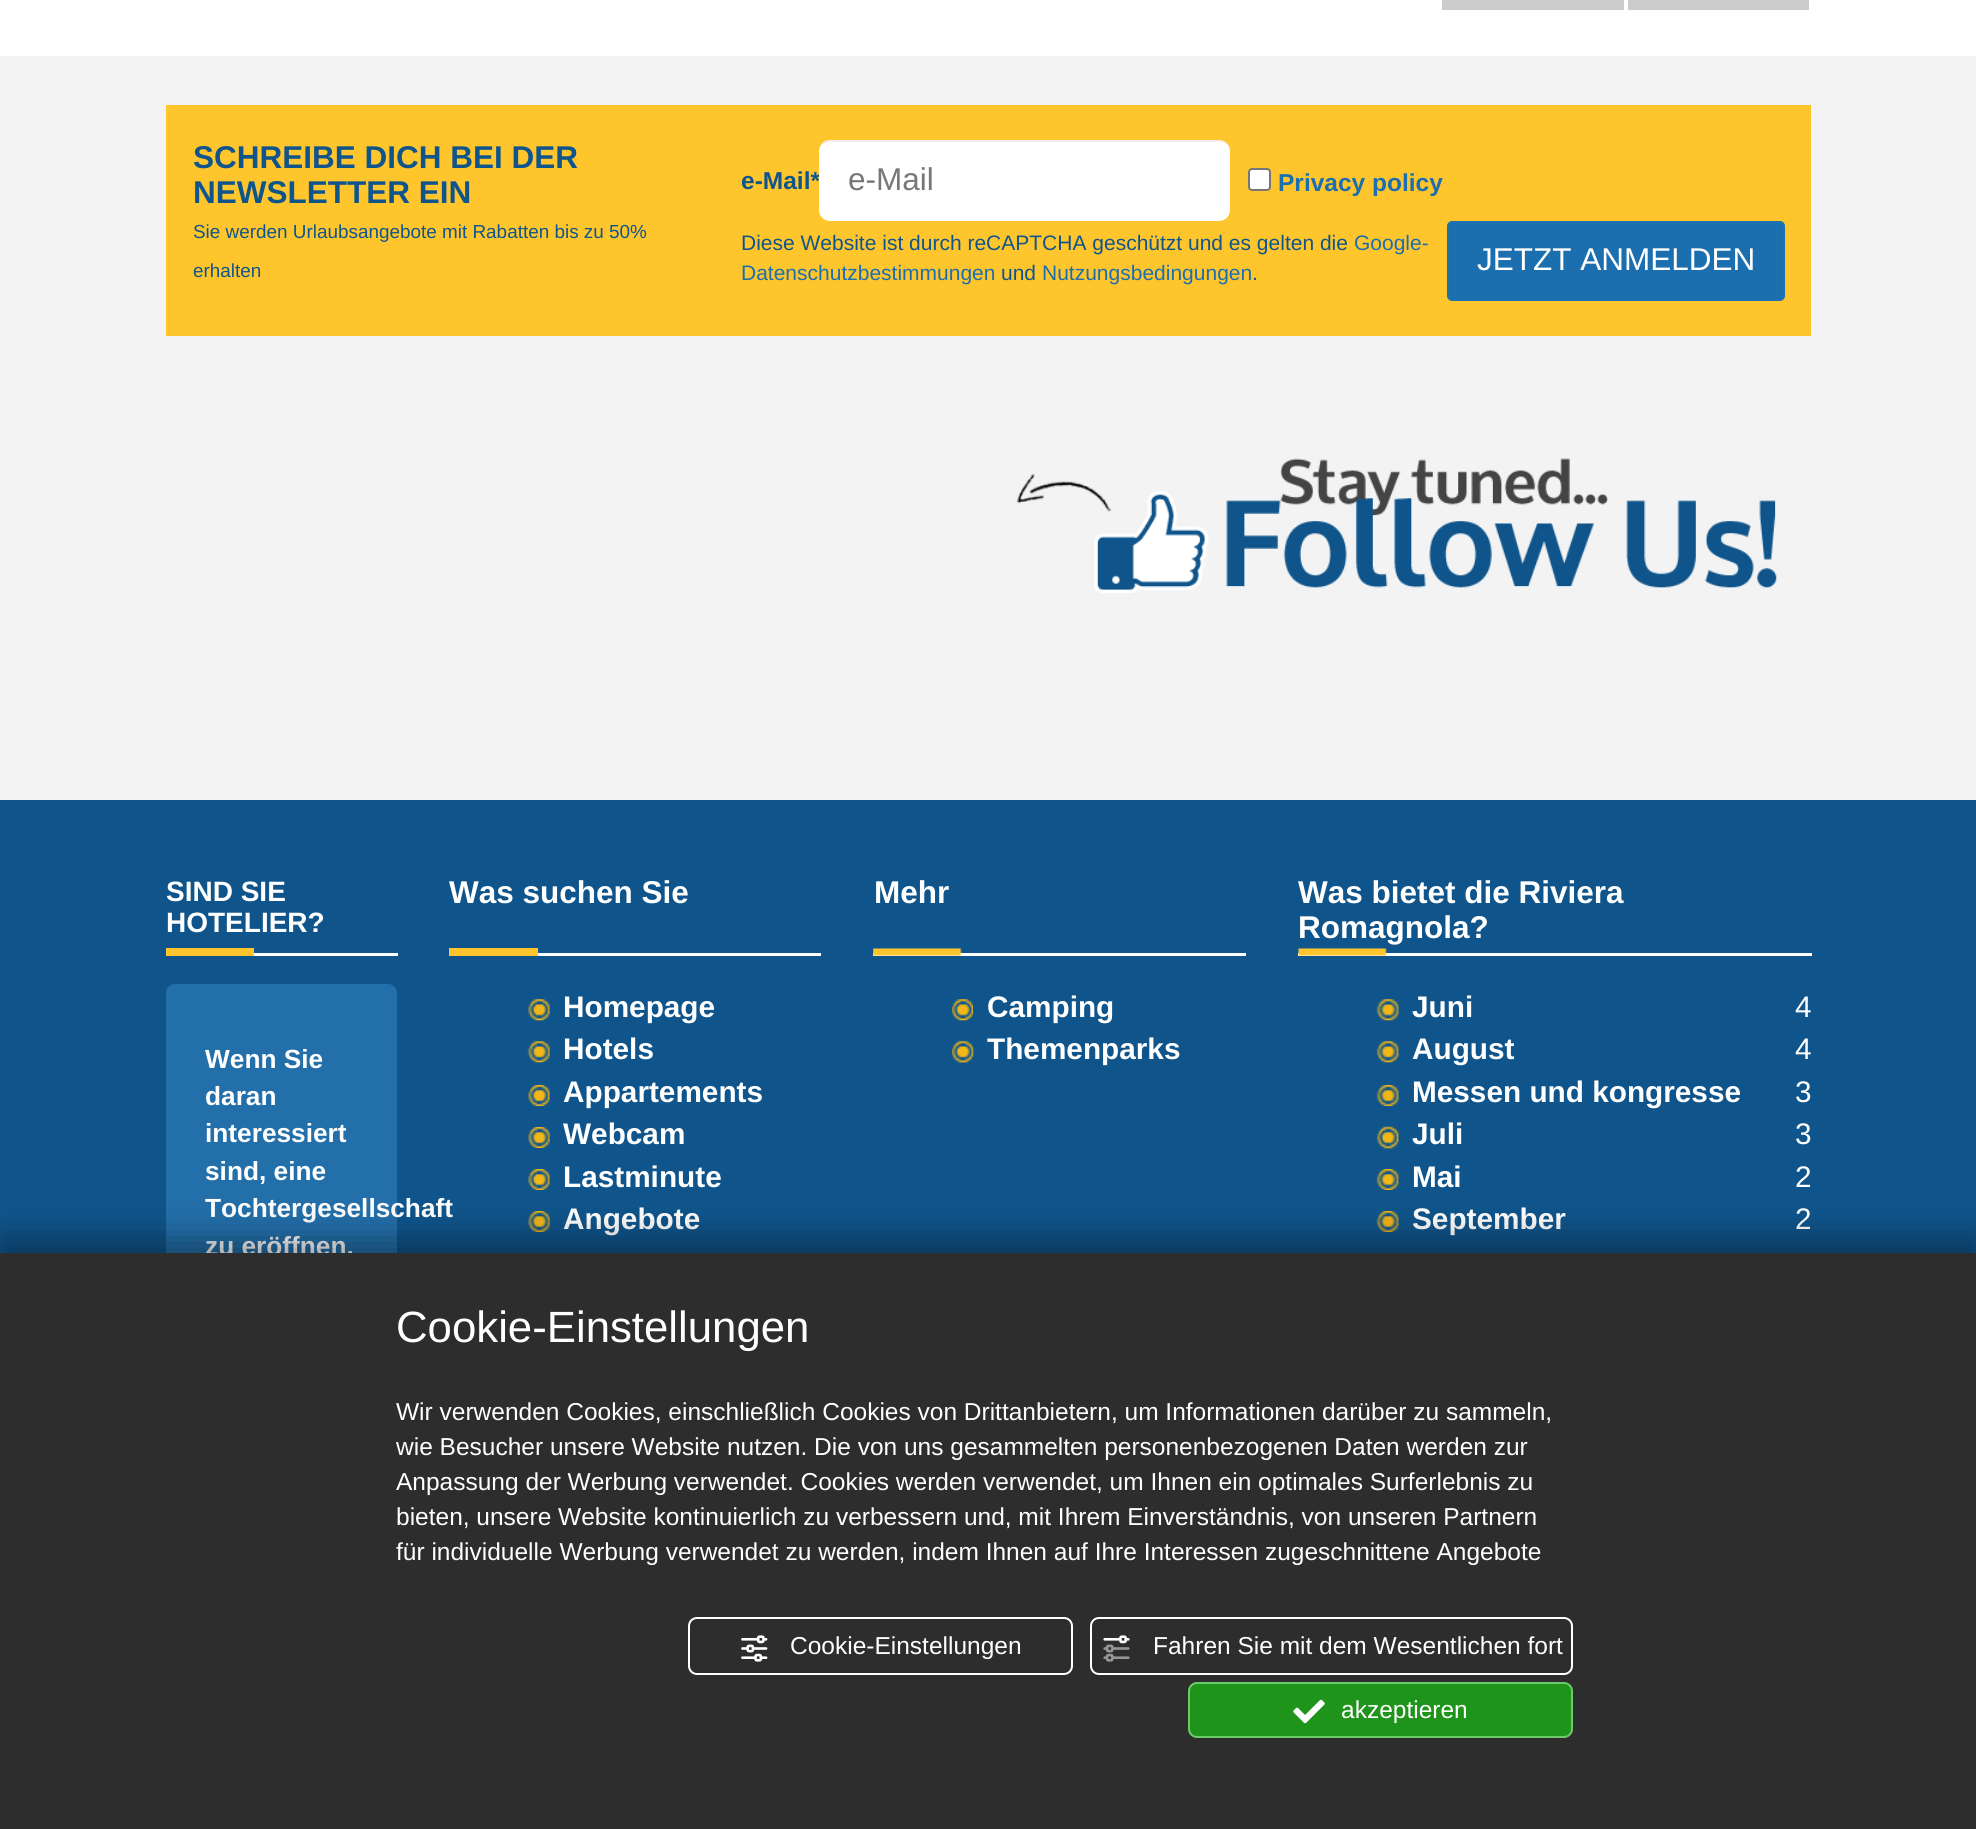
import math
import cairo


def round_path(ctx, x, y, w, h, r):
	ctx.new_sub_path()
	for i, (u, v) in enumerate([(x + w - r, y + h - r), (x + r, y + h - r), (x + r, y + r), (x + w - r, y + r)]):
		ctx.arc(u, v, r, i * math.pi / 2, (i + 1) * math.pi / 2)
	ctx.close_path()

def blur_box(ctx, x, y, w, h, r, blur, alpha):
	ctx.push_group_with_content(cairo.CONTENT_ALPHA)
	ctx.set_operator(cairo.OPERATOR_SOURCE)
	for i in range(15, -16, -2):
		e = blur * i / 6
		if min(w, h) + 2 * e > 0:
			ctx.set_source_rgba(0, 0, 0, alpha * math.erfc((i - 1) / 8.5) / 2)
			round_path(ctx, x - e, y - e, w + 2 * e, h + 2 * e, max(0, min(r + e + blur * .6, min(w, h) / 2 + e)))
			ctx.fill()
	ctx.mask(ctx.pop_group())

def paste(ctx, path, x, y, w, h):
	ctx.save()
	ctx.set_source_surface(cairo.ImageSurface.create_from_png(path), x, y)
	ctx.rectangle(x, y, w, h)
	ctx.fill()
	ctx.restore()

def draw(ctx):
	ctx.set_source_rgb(1, 1, 1)
	ctx.paint()
	ctx.set_source_rgb(0.8, 0.8, 0.8)
	ctx.rectangle(1442, 0, 182, 10)
	ctx.rectangle(1628, 0, 181, 10)
	ctx.fill()
	ctx.set_source_rgb(0.953, 0.953, 0.953)
	ctx.rectangle(0, 56, 1976, 744)
	ctx.fill()
	ctx.set_source_rgb(1, 0.773, 0.176)
	ctx.rectangle(166, 105, 1645, 231)
	ctx.fill()
	ctx.select_font_face('Liberation Sans', cairo.FONT_SLANT_NORMAL, cairo.FONT_WEIGHT_BOLD)
	ctx.set_font_size(31.5)
	ctx.set_source_rgb(0.059, 0.333, 0.545)
	ctx.move_to(193, 168)
	ctx.show_text('SCHREIBE DICH BEI DER')
	ctx.move_to(193, 203)
	ctx.show_text('NEWSLETTER EIN')
	ctx.select_font_face('Liberation Sans')
	ctx.set_font_size(18.9)
	ctx.move_to(193, 238)
	ctx.show_text('Sie werden Urlaubsangebote mit Rabatten bis zu 50%')
	ctx.move_to(193, 277)
	ctx.show_text('erhalten')
	ctx.select_font_face('Liberation Sans', cairo.FONT_SLANT_NORMAL, cairo.FONT_WEIGHT_BOLD)
	ctx.set_font_size(24.5)
	ctx.move_to(741, 189)
	ctx.show_text('e-Mail*')
	ctx.set_source_rgb(1, 1, 1)
	round_path(ctx, 819, 140, 411, 81, 11)
	ctx.fill()
	ctx.set_source_rgba(0, 0, 0, 0.07)
	ctx.new_path()
	ctx.move_to(830, 142)
	ctx.line_to(1220, 142)
	ctx.curve_to(1226, 142, 1230, 146, 1230, 152)
	ctx.line_to(1230, 151)
	ctx.curve_to(1230, 145, 1225, 140, 1219, 140)
	ctx.line_to(830, 140)
	ctx.curve_to(824, 140, 819, 145, 819, 151)
	ctx.line_to(819, 152)
	ctx.curve_to(819, 146, 824, 142, 830, 142)
	ctx.close_path()
	ctx.fill()
	ctx.select_font_face('Liberation Sans')
	ctx.set_font_size(31.5)
	ctx.set_source_rgb(0.467, 0.467, 0.467)
	ctx.move_to(848, 190)
	ctx.show_text('e-Mail')
	ctx.set_source_rgb(1, 1, 1)
	round_path(ctx, 1249, 169, 21, 21, 3)
	ctx.fill_preserve()
	ctx.set_source_rgb(0.463, 0.463, 0.463)
	ctx.stroke()
	ctx.select_font_face('Liberation Sans', cairo.FONT_SLANT_NORMAL, cairo.FONT_WEIGHT_BOLD)
	ctx.set_font_size(24.5)
	ctx.set_source_rgb(0.11, 0.435, 0.686)
	ctx.move_to(1278, 191)
	ctx.show_text('Privacy policy')
	ctx.select_font_face('Liberation Sans')
	ctx.set_font_size(21)
	ctx.set_source_rgb(0.059, 0.333, 0.545)
	ctx.move_to(741, 250)
	ctx.show_text('Diese Website ist durch reCAPTCHA geschützt und es gelten die')
	ctx.set_source_rgb(0.11, 0.435, 0.686)
	ctx.move_to(1354, 250)
	ctx.show_text('Google-')
	ctx.move_to(741, 280)
	ctx.show_text('Datenschutzbestimmungen')
	ctx.set_source_rgb(0.059, 0.333, 0.545)
	ctx.move_to(1001, 280)
	ctx.show_text('und')
	ctx.set_source_rgb(0.11, 0.435, 0.686)
	ctx.move_to(1042, 280)
	ctx.show_text('Nutzungsbedingungen')
	ctx.set_source_rgb(0.059, 0.333, 0.545)
	ctx.move_to(1252, 280)
	ctx.show_text('.')
	ctx.set_source_rgb(0.11, 0.435, 0.686)
	round_path(ctx, 1448, 222, 336, 78, 4)
	ctx.fill_preserve()
	ctx.set_source_rgb(0.122, 0.443, 0.69)
	ctx.stroke()
	ctx.set_font_size(31.5)
	ctx.set_source_rgb(1, 1, 1)
	ctx.move_to(1477, 270)
	ctx.show_text('JETZT ANMELDEN')
	paste(ctx, 'media/1.png', 1016, 458, 761, 135)
	ctx.set_source_rgb(0.059, 0.333, 0.545)
	ctx.rectangle(0, 800, 1976, 453)
	ctx.fill()
	ctx.set_source_rgb(1, 1, 1)
	ctx.rectangle(254, 953, 144, 3)
	ctx.fill()
	ctx.select_font_face('Liberation Sans', cairo.FONT_SLANT_NORMAL, cairo.FONT_WEIGHT_BOLD)
	ctx.set_font_size(28)
	ctx.move_to(166, 901)
	ctx.show_text('SIND SIE')
	ctx.move_to(166, 932)
	ctx.show_text('HOTELIER?')
	ctx.set_source_rgb(1, 0.773, 0.176)
	ctx.rectangle(166, 948, 88, 8)
	ctx.fill()
	ctx.set_source_rgb(0.137, 0.435, 0.667)
	round_path(ctx, 166, 984, 231, 525, 9)
	ctx.fill()
	ctx.set_font_size(26.25)
	ctx.set_source_rgb(1, 1, 1)
	for x, y, s in [
		(205, 1068, 'Wenn Sie'),
		(205, 1105, 'daran'),
		(205, 1142, 'interessiert'),
		(205, 1180, 'sind, eine'),
		(205, 1217, 'Tochtergesellschaft'),
		(205, 1255, 'zu eröffnen,'),
	]:
		ctx.move_to(x, y)
		ctx.show_text(s)
	ctx.rectangle(538, 953, 283, 3)
	ctx.fill()
	ctx.set_font_size(31.5)
	ctx.move_to(449, 903)
	ctx.show_text('Was suchen Sie')
	ctx.set_source_rgb(1, 0.773, 0.176)
	ctx.rectangle(449, 948, 89, 8)
	ctx.fill()
	paste(ctx, 'media/2.png', 528, 999, 22, 22)
	ctx.set_font_size(29.75)
	ctx.set_source_rgb(1, 1, 1)
	ctx.move_to(563, 1017)
	ctx.show_text('Homepage')
	paste(ctx, 'media/3.png', 527, 1041, 23, 22)
	ctx.move_to(563, 1059)
	ctx.show_text('Hotels')
	paste(ctx, 'media/4.png', 528, 1085, 22, 21)
	ctx.move_to(563, 1102)
	ctx.show_text('Appartements')
	paste(ctx, 'media/5.png', 527, 1127, 23, 21)
	ctx.move_to(563, 1144)
	ctx.show_text('Webcam')
	paste(ctx, 'media/6.png', 528, 1169, 22, 21)
	ctx.move_to(563, 1187)
	ctx.show_text('Lastminute')
	paste(ctx, 'media/7.png', 527, 1211, 23, 21)
	ctx.move_to(563, 1229)
	ctx.show_text('Angebote')
	ctx.rectangle(873, 953, 373, 3)
	ctx.fill()
	ctx.set_font_size(31.5)
	ctx.move_to(874, 903)
	ctx.show_text('Mehr')
	paste(ctx, 'media/8.png', 873, 948, 89, 8)
	paste(ctx, 'media/9.png', 952, 999, 21, 22)
	ctx.set_font_size(29.75)
	ctx.move_to(987, 1017)
	ctx.show_text('Camping')
	paste(ctx, 'media/10.png', 952, 1040, 22, 23)
	ctx.move_to(987, 1059)
	ctx.show_text('Themenparks')
	ctx.rectangle(1298, 953, 514, 3)
	ctx.fill()
	ctx.set_font_size(31.5)
	ctx.move_to(1298, 903)
	ctx.show_text('Was bietet die Riviera')
	ctx.move_to(1298, 938)
	ctx.show_text('Romagnola?')
	paste(ctx, 'media/11.png', 1297, 948, 90, 8)
	paste(ctx, 'media/12.png', 1376, 999, 23, 22)
	ctx.set_font_size(29.75)
	ctx.move_to(1412, 1017)
	ctx.show_text('Juni')
	ctx.select_font_face('Liberation Sans')
	ctx.move_to(1795, 1017)
	ctx.show_text('4')
	paste(ctx, 'media/12.png', 1376, 1041, 23, 22)
	ctx.select_font_face('Liberation Sans', cairo.FONT_SLANT_NORMAL, cairo.FONT_WEIGHT_BOLD)
	ctx.move_to(1412, 1059)
	ctx.show_text('August')
	ctx.select_font_face('Liberation Sans')
	ctx.move_to(1795, 1059)
	ctx.show_text('4')
	paste(ctx, 'media/13.png', 1376, 1085, 23, 21)
	ctx.select_font_face('Liberation Sans', cairo.FONT_SLANT_NORMAL, cairo.FONT_WEIGHT_BOLD)
	ctx.move_to(1412, 1102)
	ctx.show_text('Messen und kongresse')
	ctx.select_font_face('Liberation Sans')
	ctx.move_to(1795, 1102)
	ctx.show_text('3')
	paste(ctx, 'media/14.png', 1376, 1126, 23, 23)
	ctx.select_font_face('Liberation Sans', cairo.FONT_SLANT_NORMAL, cairo.FONT_WEIGHT_BOLD)
	ctx.move_to(1412, 1144)
	ctx.show_text('Juli')
	ctx.select_font_face('Liberation Sans')
	ctx.move_to(1795, 1144)
	ctx.show_text('3')
	paste(ctx, 'media/15.png', 1376, 1169, 23, 21)
	ctx.select_font_face('Liberation Sans', cairo.FONT_SLANT_NORMAL, cairo.FONT_WEIGHT_BOLD)
	ctx.move_to(1412, 1187)
	ctx.show_text('Mai')
	ctx.select_font_face('Liberation Sans')
	ctx.move_to(1795, 1187)
	ctx.show_text('2')
	paste(ctx, 'media/15.png', 1376, 1211, 23, 21)
	ctx.select_font_face('Liberation Sans', cairo.FONT_SLANT_NORMAL, cairo.FONT_WEIGHT_BOLD)
	ctx.move_to(1412, 1229)
	ctx.show_text('September')
	ctx.select_font_face('Liberation Sans')
	ctx.move_to(1795, 1229)
	ctx.show_text('2')
	ctx.set_source_rgb(0, 0, 0)
	blur_box(ctx, 0, 1239, 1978, 578, 0, 17.5, 0.38)
	ctx.set_source_rgb(0.176, 0.176, 0.176)
	ctx.rectangle(0, 1253, 1976, 576)
	ctx.fill()
	ctx.set_font_size(43.75)
	ctx.set_source_rgb(1, 1, 1)
	ctx.move_to(396, 1342)
	ctx.show_text('Cookie-Einstellungen')
	ctx.set_font_size(24.5)
	for x, y, s in [
		(396, 1420, 'Wir verwenden Cookies, einschließlich Cookies von Drittanbietern, um Informationen darüber zu sammeln,'),
		(396, 1455, 'wie Besucher unsere Website nutzen. Die von uns gesammelten personenbezogenen Daten werden zur'),
		(396, 1490, 'Anpassung der Werbung verwendet. Cookies werden verwendet, um Ihnen ein optimales Surferlebnis zu'),
		(396, 1525, 'bieten, unsere Website kontinuierlich zu verbessern und, mit Ihrem Einverständnis, von unseren Partnern'),
		(396, 1560, 'für individuelle Werbung verwendet zu werden, indem Ihnen auf Ihre Interessen zugeschnittene Angebote'),
	]:
		ctx.move_to(x, y)
		ctx.show_text(s)
	round_path(ctx, 689, 1618, 383, 56, 8)
	ctx.stroke()
	paste(ctx, 'media/16.png', 741, 1635, 27, 27)
	ctx.move_to(790, 1654)
	ctx.show_text('Cookie-Einstellungen')
	round_path(ctx, 1091, 1618, 481, 56, 8)
	ctx.stroke()
	paste(ctx, 'media/17.png', 1103, 1635, 27, 27)
	ctx.move_to(1153, 1654)
	ctx.show_text('Fahren Sie mit dem Wesentlichen fort')
	ctx.set_source_rgb(0.118, 0.58, 0.102)
	round_path(ctx, 1189, 1683, 383, 54, 8)
	ctx.fill_preserve()
	ctx.set_source_rgb(0.424, 0.792, 0.412)
	ctx.stroke()
	paste(ctx, 'media/18.png', 1293, 1699, 32, 25)
	ctx.set_source_rgb(1, 1, 1)
	ctx.move_to(1341, 1718)
	ctx.show_text('akzeptieren')


surface = cairo.ImageSurface(cairo.FORMAT_RGB24, 1976, 1829)
ctx = cairo.Context(surface)
options = cairo.FontOptions()
options.set_hint_metrics(cairo.HINT_METRICS_OFF)
options.set_hint_style(cairo.HINT_STYLE_NONE)
ctx.set_font_options(options)
ctx.set_miter_limit(4)
draw(ctx)
surface.write_to_png('image.png')
